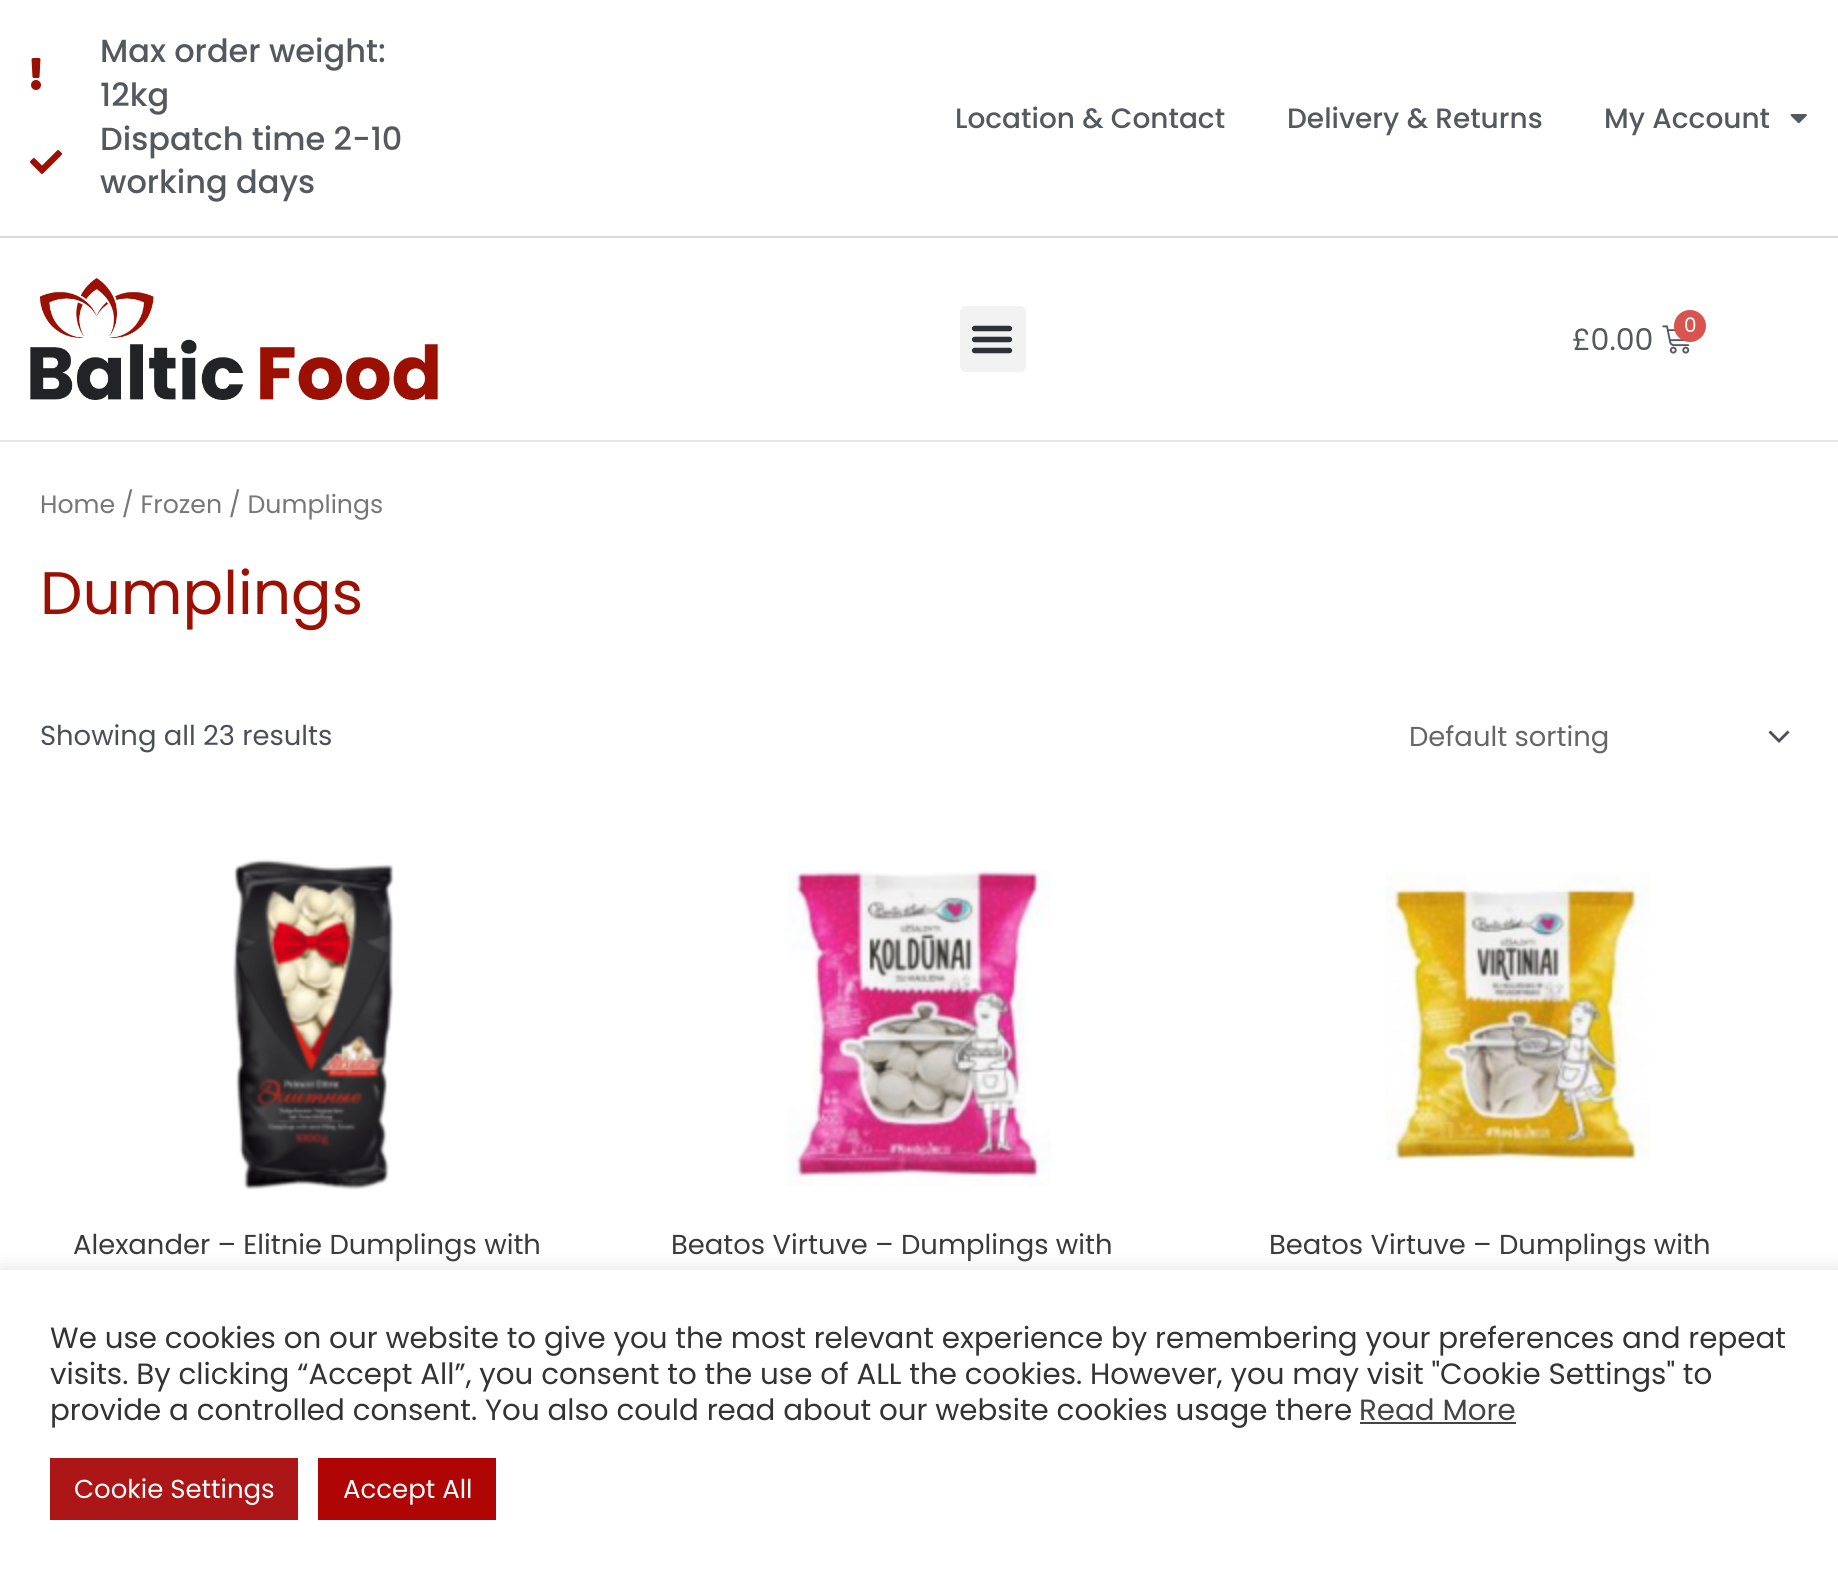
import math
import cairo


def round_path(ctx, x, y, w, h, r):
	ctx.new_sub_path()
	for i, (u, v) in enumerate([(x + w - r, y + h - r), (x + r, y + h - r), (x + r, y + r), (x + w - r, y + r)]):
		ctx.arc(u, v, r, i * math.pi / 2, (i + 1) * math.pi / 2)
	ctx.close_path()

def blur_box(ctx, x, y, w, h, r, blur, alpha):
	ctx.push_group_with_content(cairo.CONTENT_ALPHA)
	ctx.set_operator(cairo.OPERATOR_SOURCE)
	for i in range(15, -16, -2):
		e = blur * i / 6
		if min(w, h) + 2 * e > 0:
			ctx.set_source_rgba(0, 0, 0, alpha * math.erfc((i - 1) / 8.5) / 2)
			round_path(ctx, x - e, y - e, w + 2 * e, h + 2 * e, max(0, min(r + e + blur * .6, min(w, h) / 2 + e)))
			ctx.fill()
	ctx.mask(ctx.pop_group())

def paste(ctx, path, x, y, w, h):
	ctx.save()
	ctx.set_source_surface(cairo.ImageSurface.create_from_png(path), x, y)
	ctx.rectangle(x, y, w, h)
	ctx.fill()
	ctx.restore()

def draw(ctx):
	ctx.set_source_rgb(1, 1, 1)
	ctx.paint()
	ctx.set_source_rgb(0.855, 0.855, 0.855)
	ctx.rectangle(0, 236, 1838, 2)
	ctx.fill()
	paste(ctx, 'media/1.png', 31, 58, 10, 32)
	ctx.select_font_face('Poppins Medium')
	ctx.set_font_size(32)
	ctx.set_source_rgb(0.329, 0.349, 0.373)
	ctx.move_to(100, 62)
	ctx.show_text('Max order weight:')
	ctx.move_to(100, 106)
	ctx.show_text('12kg')
	paste(ctx, 'media/2.png', 30, 150, 32, 24)
	ctx.move_to(100, 150)
	ctx.show_text('Dispatch time 2-10')
	ctx.move_to(100, 193)
	ctx.show_text('working days')
	ctx.set_font_size(28)
	for x, y, s in [
		(955, 128, 'Location & Contact'),
		(1287, 128, 'Delivery & Returns'),
		(1604, 128, 'My Account'),
	]:
		ctx.move_to(x, y)
		ctx.show_text(s)
	paste(ctx, 'media/3.png', 1790, 114, 17, 10)
	ctx.set_source_rgb(0.902, 0.902, 0.902)
	ctx.rectangle(0, 440, 1838, 2)
	ctx.fill()
	paste(ctx, 'media/4.png', 30, 278, 408, 122)
	ctx.set_source_rgb(0.949, 0.949, 0.949)
	round_path(ctx, 960, 306, 66, 66, 6)
	ctx.fill()
	paste(ctx, 'media/5.png', 971, 325, 42, 29)
	paste(ctx, 'media/6.png', 1662, 325, 28, 29)
	ctx.set_source_rgb(0.851, 0.325, 0.31)
	ctx.arc(1690, 326, 16, 0, 2 * math.pi)
	ctx.fill()
	ctx.select_font_face('Poppins')
	ctx.set_font_size(20)
	ctx.set_source_rgb(1, 1, 1)
	ctx.move_to(1684, 332)
	ctx.show_text('0')
	ctx.set_font_size(30)
	ctx.set_source_rgb(0.329, 0.349, 0.373)
	ctx.move_to(1572, 350)
	ctx.show_text('£0.00')
	ctx.set_font_size(25.2)
	ctx.set_source_rgb(0.467, 0.467, 0.467)
	ctx.move_to(40, 513)
	ctx.show_text('Home / Frozen / Dumplings')
	ctx.set_font_size(60)
	ctx.set_source_rgb(0.612, 0.063, 0.012)
	ctx.move_to(40, 614)
	ctx.show_text('Dumplings')
	ctx.set_font_size(27.4)
	ctx.set_source_rgb(0.294, 0.31, 0.345)
	ctx.move_to(40, 745)
	ctx.show_text('Showing all 23 results')
	ctx.new_path()
	ctx.move_to(1768.5, 732.5)
	ctx.line_to(1779, 743)
	ctx.line_to(1789.5, 732.5)
	ctx.line_to(1787.5, 730.5)
	ctx.line_to(1779, 739)
	ctx.line_to(1770.5, 730.5)
	ctx.close_path()
	ctx.fill()
	ctx.set_source_rgb(0.4, 0.4, 0.4)
	ctx.move_to(1409, 746)
	ctx.show_text('Default sorting')
	paste(ctx, 'media/7.png', 233, 859, 161, 331)
	ctx.set_source_rgb(0.227, 0.227, 0.227)
	ctx.move_to(73, 1254)
	ctx.show_text('Alexander – Elitnie Dumplings with')
	paste(ctx, 'media/8.png', 787, 870, 264, 317)
	ctx.move_to(671, 1254)
	ctx.show_text('Beatos Virtuve – Dumplings with')
	paste(ctx, 'media/9.png', 1385, 872, 265, 289)
	ctx.move_to(1269, 1254)
	ctx.show_text('Beatos Virtuve – Dumplings with')
	ctx.set_source_rgb(0.675, 0.671, 0.671)
	blur_box(ctx, 0, 1268, 1838, 310, 0, 10, 0.3)
	ctx.set_source_rgb(1, 1, 1)
	ctx.rectangle(0, 1270, 1838, 310)
	ctx.fill()
	ctx.set_font_size(29.33)
	ctx.set_source_rgb(0.2, 0.2, 0.2)
	for x, y, s in [
		(50, 1348, 'We use cookies on our website to give you the most relevant experience by remembering your preferences and repeat'),
		(50, 1384, 'visits. By clicking “Accept All”, you consent to the use of ALL the cookies. However, you may visit "Cookie Settings" to'),
		(50, 1420, 'provide a controlled consent. You also could read about our website cookies usage there'),
	]:
		ctx.move_to(x, y)
		ctx.show_text(s)
	ctx.set_source_rgb(0.267, 0.267, 0.267)
	ctx.move_to(1359, 1420)
	ctx.show_text('Read More')
	ctx.rectangle(1360, 1422, 156, 2)
	ctx.fill()
	ctx.set_source_rgb(0.678, 0.086, 0.086)
	ctx.rectangle(50, 1458, 248, 62)
	ctx.fill()
	ctx.set_font_size(26)
	ctx.set_source_rgb(1, 1, 1)
	ctx.move_to(74, 1498)
	ctx.show_text('Cookie Settings')
	ctx.set_source_rgb(0.686, 0.02, 0.02)
	ctx.rectangle(318, 1458, 178, 62)
	ctx.fill()
	ctx.set_source_rgb(1, 1, 1)
	ctx.move_to(343, 1498)
	ctx.show_text('Accept All')


surface = cairo.ImageSurface(cairo.FORMAT_RGB24, 1838, 1580)
ctx = cairo.Context(surface)
options = cairo.FontOptions()
options.set_hint_metrics(cairo.HINT_METRICS_OFF)
options.set_hint_style(cairo.HINT_STYLE_NONE)
ctx.set_font_options(options)
ctx.set_miter_limit(4)
draw(ctx)
surface.write_to_png('image.png')
